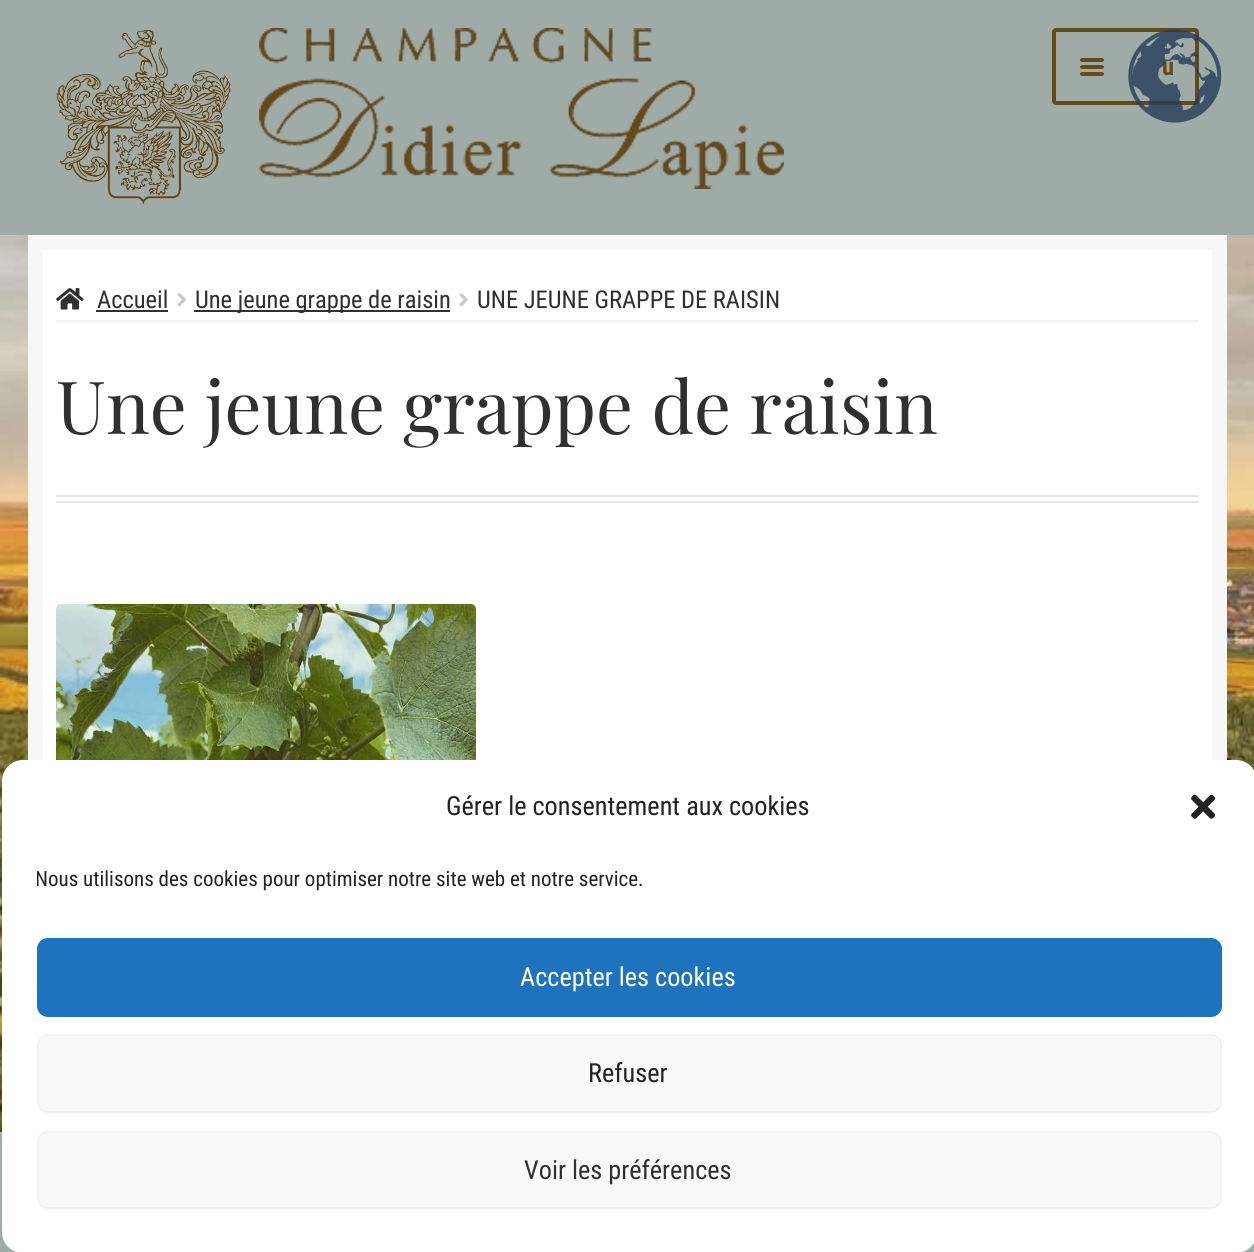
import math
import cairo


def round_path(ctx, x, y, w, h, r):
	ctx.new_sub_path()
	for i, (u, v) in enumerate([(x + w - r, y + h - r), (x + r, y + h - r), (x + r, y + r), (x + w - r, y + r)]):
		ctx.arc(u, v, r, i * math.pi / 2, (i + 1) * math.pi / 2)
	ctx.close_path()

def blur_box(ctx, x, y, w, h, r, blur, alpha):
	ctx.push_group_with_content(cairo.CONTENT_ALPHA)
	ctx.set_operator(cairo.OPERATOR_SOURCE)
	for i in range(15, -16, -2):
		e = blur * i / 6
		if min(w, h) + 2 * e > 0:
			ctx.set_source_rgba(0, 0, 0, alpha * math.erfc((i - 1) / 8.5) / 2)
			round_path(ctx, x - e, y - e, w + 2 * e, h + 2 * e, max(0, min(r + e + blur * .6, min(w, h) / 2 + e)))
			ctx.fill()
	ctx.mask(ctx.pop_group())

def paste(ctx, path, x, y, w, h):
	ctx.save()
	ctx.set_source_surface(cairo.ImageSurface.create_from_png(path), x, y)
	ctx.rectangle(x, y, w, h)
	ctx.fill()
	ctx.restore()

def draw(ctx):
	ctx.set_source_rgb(1, 1, 1)
	ctx.paint()
	ctx.set_source_rgb(0.624, 0.671, 0.655)
	ctx.rectangle(0, 0, 1254, 235)
	ctx.fill()
	paste(ctx, 'media/1.png', 56, 29, 175, 176)
	paste(ctx, 'media/2.png', 259, 28, 525, 161)
	round_path(ctx, 1054, 30, 143, 73, 2)
	ctx.set_source_rgb(0.4, 0.282, 0.098)
	ctx.set_line_width(4)
	ctx.stroke()
	round_path(ctx, 1080, 58, 24, 4, 2)
	ctx.fill()
	round_path(ctx, 1080, 72, 24, 4, 2)
	ctx.fill()
	round_path(ctx, 1080, 65, 24, 4, 2)
	ctx.fill()
	ctx.select_font_face('Roboto Condensed', cairo.FONT_SLANT_NORMAL, cairo.FONT_WEIGHT_BOLD)
	ctx.set_font_size(24.5)
	ctx.move_to(1162, 75)
	ctx.show_text('u')
	paste(ctx, 'media/3.png', 0, 235, 1254, 897)
	ctx.set_source_rgb(1, 1, 1)
	ctx.rectangle(43, 250, 1169, 510)
	ctx.fill()
	ctx.rectangle(35.5, 242.5, 1184, 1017)
	ctx.set_source_rgb(0.965, 0.965, 0.965)
	ctx.set_line_width(15)
	ctx.stroke()
	ctx.set_source_rgb(0.949, 0.949, 0.949)
	ctx.rectangle(56, 320, 1143, 2)
	ctx.fill()
	paste(ctx, 'media/4.png', 56, 288, 28, 22)
	ctx.select_font_face('Roboto Condensed')
	ctx.set_source_rgb(0.188, 0.188, 0.188)
	ctx.move_to(97, 308)
	ctx.show_text('Accueil')
	ctx.rectangle(96, 310, 72, 2)
	ctx.fill()
	paste(ctx, 'media/5.png', 177, 293, 10, 14)
	ctx.rectangle(194, 310, 256, 2)
	ctx.fill()
	ctx.move_to(195, 308)
	ctx.show_text('Une jeune grappe de raisin')
	paste(ctx, 'media/6.png', 459, 293, 9, 14)
	ctx.move_to(477, 308)
	ctx.show_text('UNE JEUNE GRAPPE DE RAISIN')
	ctx.set_source_rgb(0.902, 0.902, 0.902)
	ctx.rectangle(56, 495, 1143, 2)
	ctx.fill()
	ctx.rectangle(56, 501, 1143, 2)
	ctx.fill()
	ctx.select_font_face('Playfair Display')
	ctx.set_font_size(73.25)
	ctx.set_source_rgb(0.188, 0.188, 0.188)
	ctx.move_to(56, 434)
	ctx.show_text('Une jeune grappe de raisin')
	paste(ctx, 'media/7.png', 56, 603, 420, 157)
	ctx.set_source_rgb(0, 0, 0)
	blur_box(ctx, 0, 1132, 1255, 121, 0, 5, 0.7)
	ctx.set_source_rgb(0.698, 0.737, 0.725)
	ctx.rectangle(0, 1132, 2, 2)
	ctx.fill()
	ctx.set_source_rgb(0.624, 0.671, 0.655)
	ctx.rectangle(0, 1134, 17, 118)
	ctx.rectangle(1242, 1242, 12, 10)
	ctx.fill()
	paste(ctx, 'media/8.png', 1128, 29, 94, 94)
	ctx.set_source_rgb(1, 1, 1)
	round_path(ctx, 2, 760, 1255, 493, 21)
	ctx.fill()
	ctx.select_font_face('Roboto Condensed')
	ctx.set_font_size(26.25)
	ctx.set_source_rgb(0.133, 0.133, 0.133)
	ctx.move_to(446, 815)
	ctx.show_text('Gérer le consentement aux cookies')
	paste(ctx, 'media/9.png', 1191, 794, 25, 25)
	ctx.save()
	ctx.rectangle(37, 863, 1185, 40)
	ctx.clip()
	ctx.set_font_size(21)
	ctx.move_to(35, 886)
	ctx.show_text('Nous utilisons des cookies pour optimiser notre site web et notre service.')
	ctx.restore()
	ctx.set_source_rgb(0.118, 0.451, 0.745)
	round_path(ctx, 38, 939, 1183, 77, 10)
	ctx.fill_preserve()
	ctx.set_line_width(2)
	ctx.stroke()
	ctx.set_source_rgb(1, 1, 1)
	ctx.move_to(520, 986)
	ctx.show_text('Accepter les cookies')
	ctx.set_source_rgb(0.976, 0.976, 0.976)
	round_path(ctx, 38, 1035, 1183, 77, 10)
	ctx.fill_preserve()
	ctx.set_source_rgb(0.949, 0.949, 0.949)
	ctx.stroke()
	ctx.set_source_rgb(0.133, 0.133, 0.133)
	ctx.move_to(588, 1082)
	ctx.show_text('Refuser')
	ctx.set_source_rgb(0.976, 0.976, 0.976)
	round_path(ctx, 38, 1132, 1183, 76, 10)
	ctx.fill_preserve()
	ctx.set_source_rgb(0.949, 0.949, 0.949)
	ctx.stroke()
	ctx.set_source_rgb(0.188, 0.188, 0.188)
	ctx.move_to(524, 1179)
	ctx.show_text('Voir les préférences')


surface = cairo.ImageSurface(cairo.FORMAT_RGB24, 1254, 1252)
ctx = cairo.Context(surface)
options = cairo.FontOptions()
options.set_hint_metrics(cairo.HINT_METRICS_OFF)
options.set_hint_style(cairo.HINT_STYLE_NONE)
ctx.set_font_options(options)
ctx.set_miter_limit(4)
draw(ctx)
surface.write_to_png('image.png')
